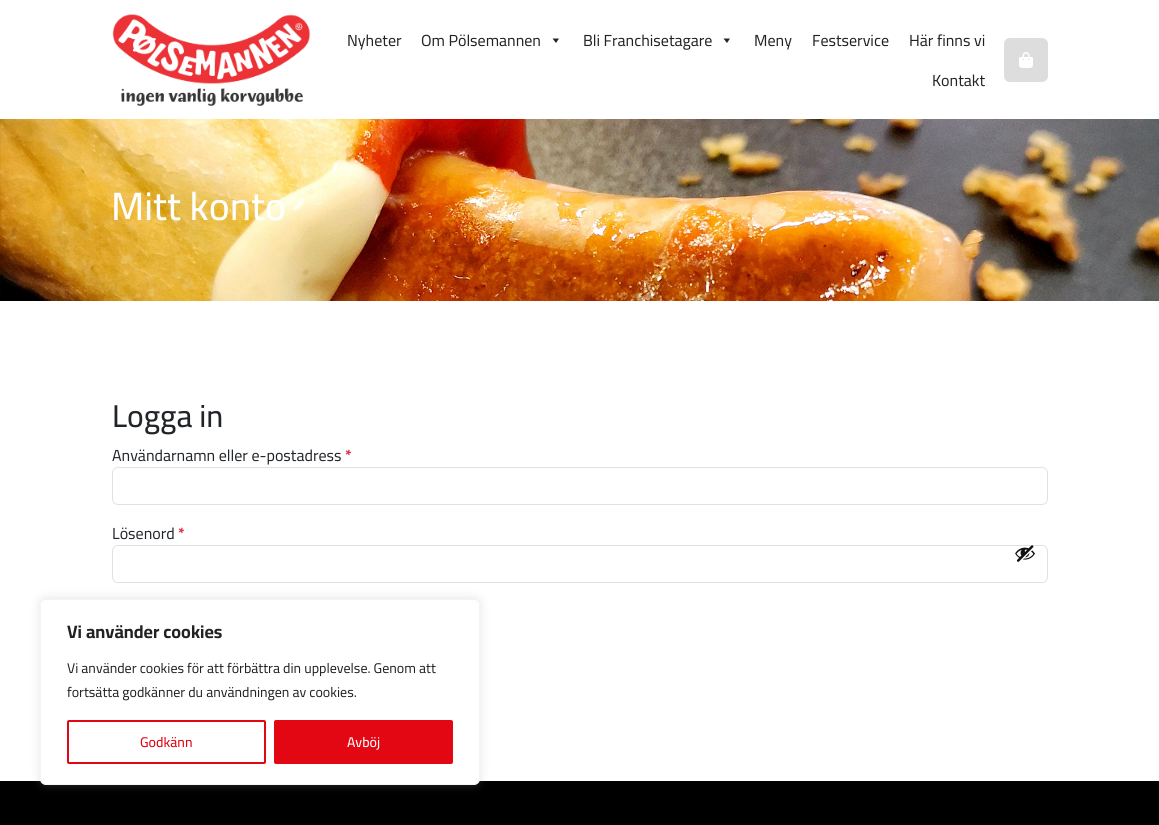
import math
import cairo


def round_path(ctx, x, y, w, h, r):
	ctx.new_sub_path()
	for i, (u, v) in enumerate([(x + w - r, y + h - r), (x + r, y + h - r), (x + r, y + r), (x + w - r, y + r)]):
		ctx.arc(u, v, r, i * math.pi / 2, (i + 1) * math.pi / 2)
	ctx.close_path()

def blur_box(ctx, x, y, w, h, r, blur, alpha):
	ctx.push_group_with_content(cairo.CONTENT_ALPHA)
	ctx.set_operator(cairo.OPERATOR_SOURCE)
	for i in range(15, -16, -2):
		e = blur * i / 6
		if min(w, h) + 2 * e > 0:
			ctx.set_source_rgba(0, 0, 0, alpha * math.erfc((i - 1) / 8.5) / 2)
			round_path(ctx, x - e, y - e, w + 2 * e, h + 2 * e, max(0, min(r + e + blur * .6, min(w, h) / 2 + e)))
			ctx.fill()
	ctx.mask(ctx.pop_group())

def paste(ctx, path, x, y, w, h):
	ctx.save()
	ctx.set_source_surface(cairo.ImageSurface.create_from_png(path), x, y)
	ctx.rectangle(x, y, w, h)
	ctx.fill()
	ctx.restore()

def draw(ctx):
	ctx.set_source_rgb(1, 1, 1)
	ctx.paint()
	paste(ctx, 'media/1.png', 112, 14, 199, 92)
	ctx.select_font_face('Cairo')
	ctx.set_font_size(16)
	ctx.set_source_rgb(0.133, 0.133, 0.133)
	ctx.move_to(347, 46)
	ctx.show_text('Nyheter')
	ctx.move_to(421, 46)
	ctx.show_text('Om Pölsemannen')
	ctx.new_path()
	ctx.move_to(559, 38.5)
	ctx.line_to(556, 43)
	ctx.line_to(552.5, 38.5)
	ctx.close_path()
	ctx.fill()
	ctx.move_to(583, 46)
	ctx.show_text('Bli Franchisetagare')
	ctx.new_path()
	ctx.move_to(730, 38.5)
	ctx.line_to(727, 43)
	ctx.line_to(723.5, 38.5)
	ctx.close_path()
	ctx.fill()
	for x, y, s in [
		(754, 46, 'Meny'),
		(812, 46, 'Festservice'),
		(909, 46, 'Här finns vi'),
		(932, 86, 'Kontakt'),
	]:
		ctx.move_to(x, y)
		ctx.show_text(s)
	ctx.set_source_rgb(0.867, 0.867, 0.867)
	round_path(ctx, 1004, 38, 44, 44, 6)
	ctx.fill()
	paste(ctx, 'media/2.png', 1019, 52, 14, 16)
	paste(ctx, 'media/3.png', 0, 119, 1159, 182)
	ctx.select_font_face('Cairo Medium')
	ctx.set_font_size(39.5)
	ctx.set_source_rgb(1, 1, 1)
	ctx.move_to(111, 220)
	ctx.show_text('Mitt konto')
	ctx.set_font_size(31.5)
	ctx.set_source_rgb(0.129, 0.145, 0.161)
	ctx.move_to(112, 427)
	ctx.show_text('Logga in')
	ctx.select_font_face('Cairo')
	ctx.set_font_size(16)
	ctx.move_to(112, 461)
	ctx.show_text('Användarnamn eller e-postadress')
	ctx.select_font_face('Cairo', cairo.FONT_SLANT_NORMAL, cairo.FONT_WEIGHT_BOLD)
	ctx.set_source_rgb(0.863, 0.208, 0.271)
	ctx.move_to(345, 461)
	ctx.show_text('*')
	round_path(ctx, 112.5, 467.5, 935, 37, 5.5)
	ctx.set_source_rgb(0.871, 0.886, 0.902)
	ctx.set_line_width(1)
	ctx.stroke()
	ctx.select_font_face('Cairo')
	ctx.set_source_rgb(0.129, 0.145, 0.161)
	ctx.move_to(112, 539)
	ctx.show_text('Lösenord')
	ctx.select_font_face('Cairo', cairo.FONT_SLANT_NORMAL, cairo.FONT_WEIGHT_BOLD)
	ctx.set_source_rgb(0.863, 0.208, 0.271)
	ctx.move_to(178, 539)
	ctx.show_text('*')
	round_path(ctx, 112.5, 545.5, 935, 37, 5.5)
	ctx.set_source_rgb(0.871, 0.886, 0.902)
	ctx.stroke()
	paste(ctx, 'media/4.png', 1015, 545, 20, 17)
	ctx.set_source_rgb(0, 0, 0)
	ctx.rectangle(0, 781, 1159, 44)
	ctx.fill()
	ctx.set_source_rgb(0.675, 0.671, 0.671)
	blur_box(ctx, 40, 598, 440, 186, 6, 5, 0.3)
	ctx.set_source_rgb(1, 1, 1)
	round_path(ctx, 40.5, 599.5, 439, 185, 5.5)
	ctx.fill_preserve()
	ctx.set_source_rgb(0.957, 0.957, 0.957)
	ctx.stroke()
	ctx.set_font_size(18)
	ctx.set_source_rgb(0.133, 0.133, 0.133)
	ctx.move_to(67, 638)
	ctx.show_text('Vi använder cookies')
	ctx.select_font_face('Cairo')
	ctx.set_font_size(14)
	ctx.move_to(67, 673)
	ctx.show_text('Vi använder cookies för att förbättra din upplevelse. Genom att')
	ctx.move_to(67, 697)
	ctx.show_text('fortsätta godkänner du användningen av cookies.')
	round_path(ctx, 68, 721, 197, 42, 1)
	ctx.set_source_rgb(0.89, 0.024, 0.075)
	ctx.set_line_width(2)
	ctx.stroke()
	ctx.select_font_face('Cairo Medium')
	ctx.move_to(140, 747)
	ctx.show_text('Godkänn')
	round_path(ctx, 275, 721, 177, 42, 1)
	ctx.fill_preserve()
	ctx.stroke()
	ctx.set_source_rgb(1, 1, 1)
	ctx.move_to(347, 747)
	ctx.show_text('Avböj')


surface = cairo.ImageSurface(cairo.FORMAT_RGB24, 1159, 825)
ctx = cairo.Context(surface)
options = cairo.FontOptions()
options.set_hint_metrics(cairo.HINT_METRICS_OFF)
options.set_hint_style(cairo.HINT_STYLE_NONE)
ctx.set_font_options(options)
ctx.set_miter_limit(4)
draw(ctx)
surface.write_to_png('image.png')
